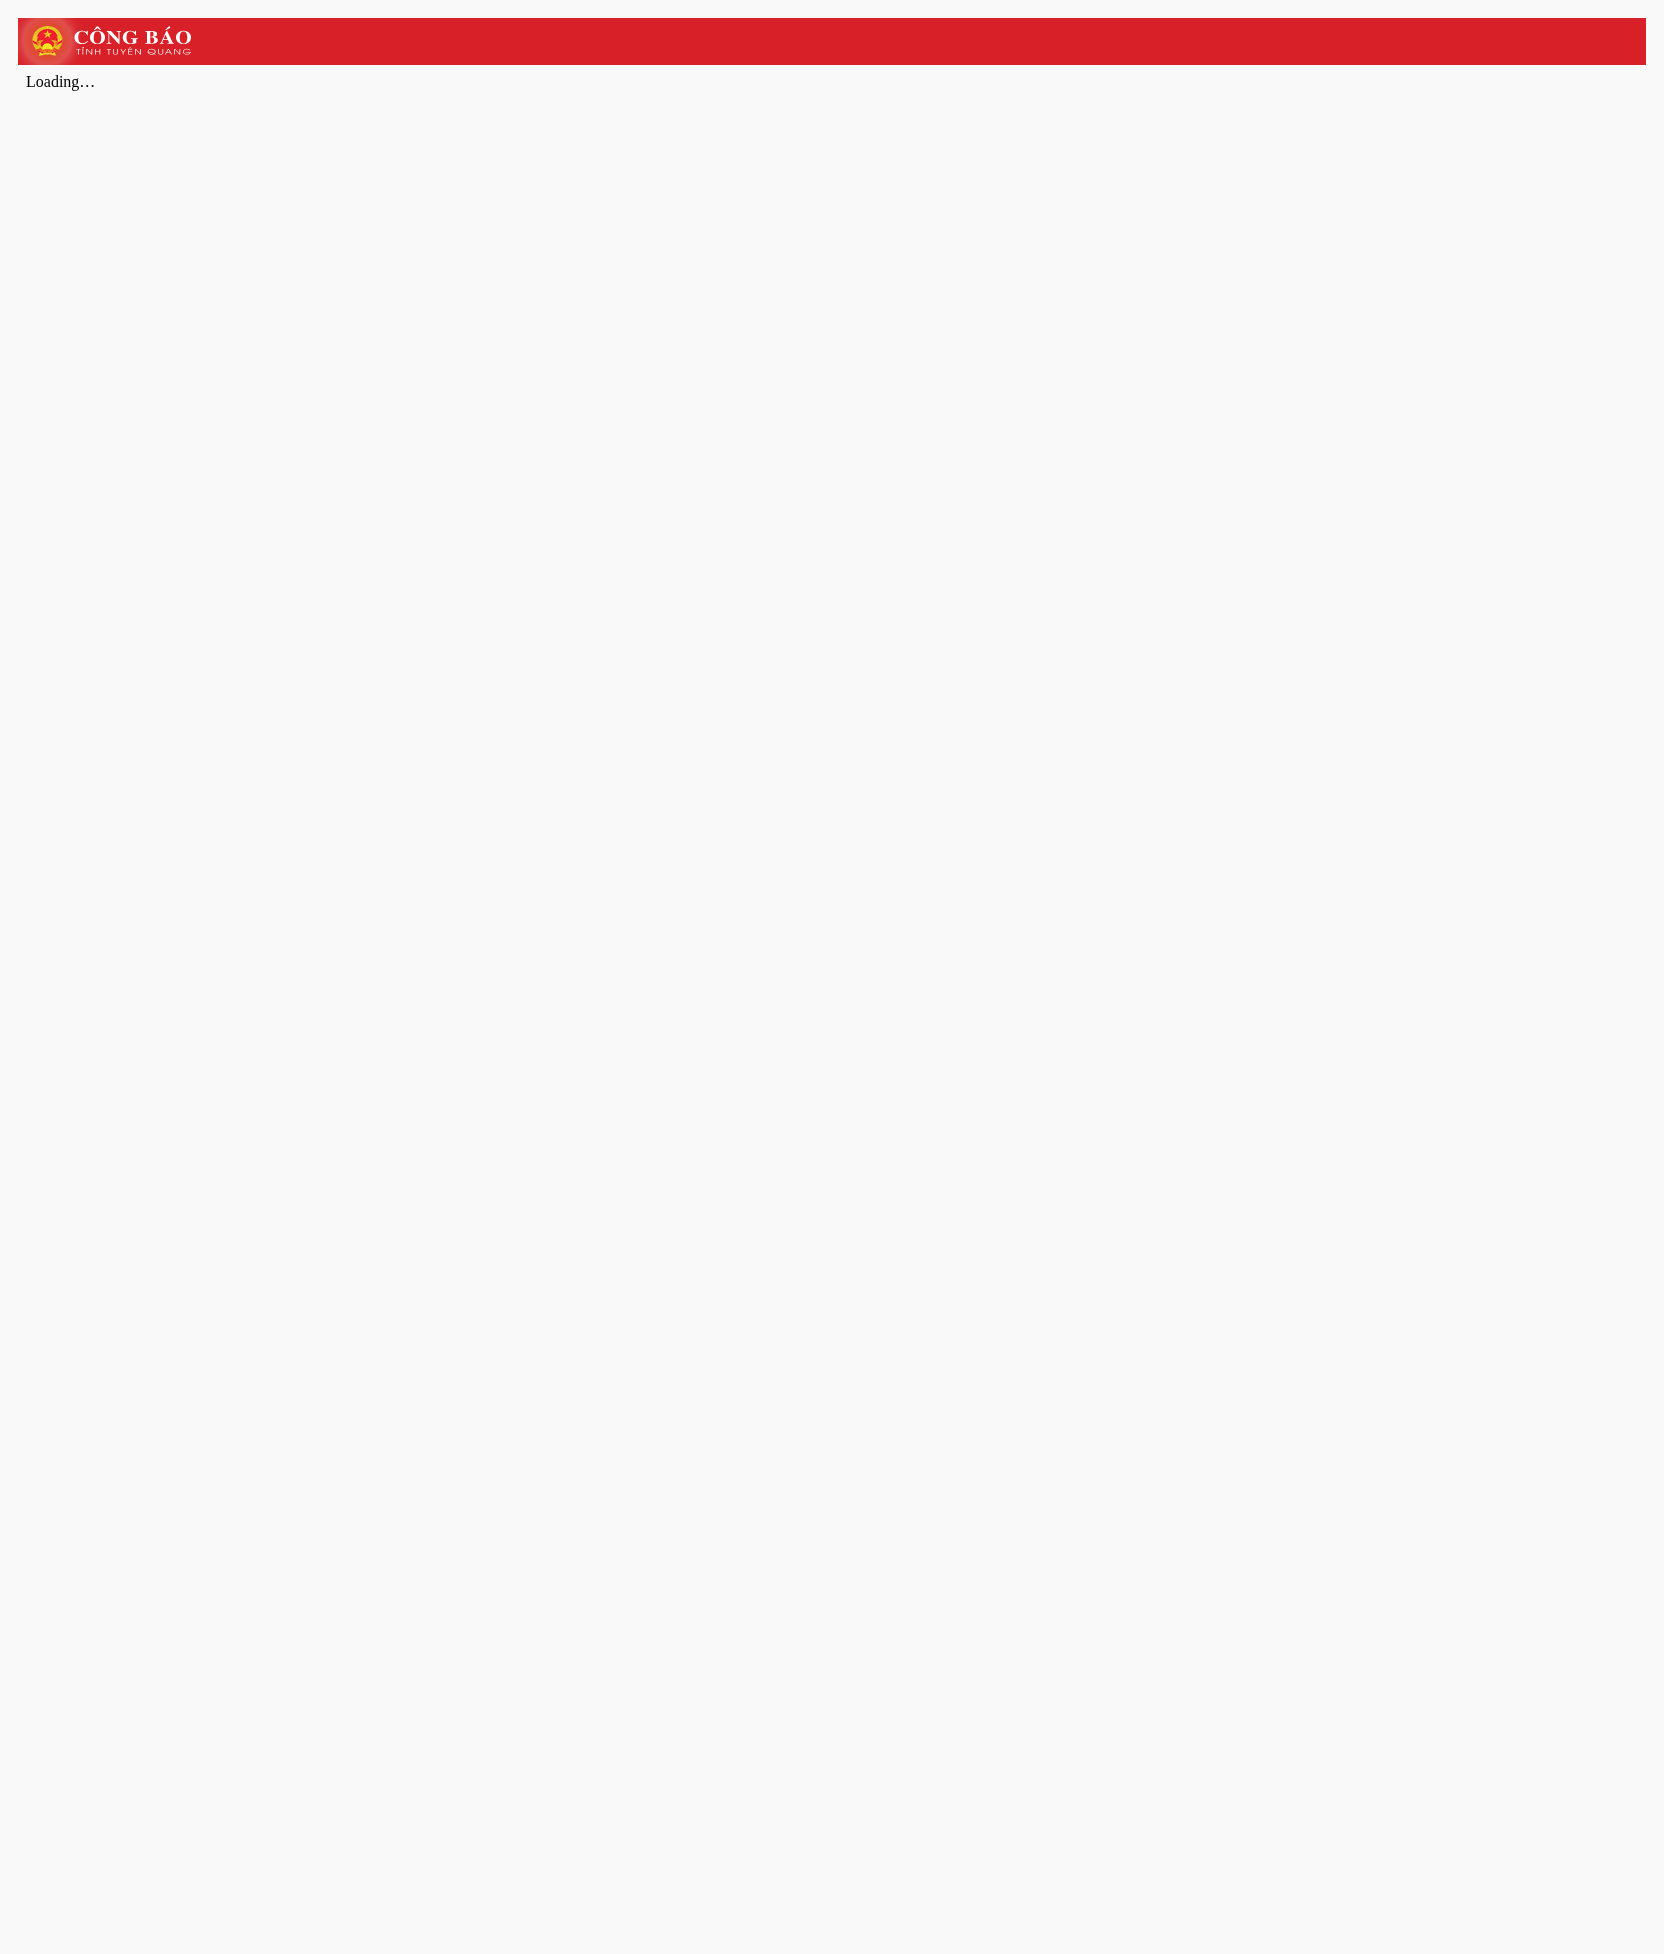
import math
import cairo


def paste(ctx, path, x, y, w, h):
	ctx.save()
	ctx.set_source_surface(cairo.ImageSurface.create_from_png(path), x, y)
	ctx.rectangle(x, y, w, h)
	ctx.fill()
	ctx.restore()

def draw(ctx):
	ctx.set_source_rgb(0.976, 0.976, 0.976)
	ctx.paint()
	ctx.set_source_rgb(0.843, 0.125, 0.153)
	ctx.rectangle(18, 18, 1628, 47)
	ctx.fill()
	paste(ctx, 'media/1.png', 18, 18, 173, 47)
	paste(ctx, 'media/2.png', 26, 75, 68, 16)


surface = cairo.ImageSurface(cairo.FORMAT_RGB24, 1664, 1954)
ctx = cairo.Context(surface)
options = cairo.FontOptions()
options.set_hint_metrics(cairo.HINT_METRICS_OFF)
options.set_hint_style(cairo.HINT_STYLE_NONE)
ctx.set_font_options(options)
ctx.set_miter_limit(4)
draw(ctx)
surface.write_to_png('image.png')
